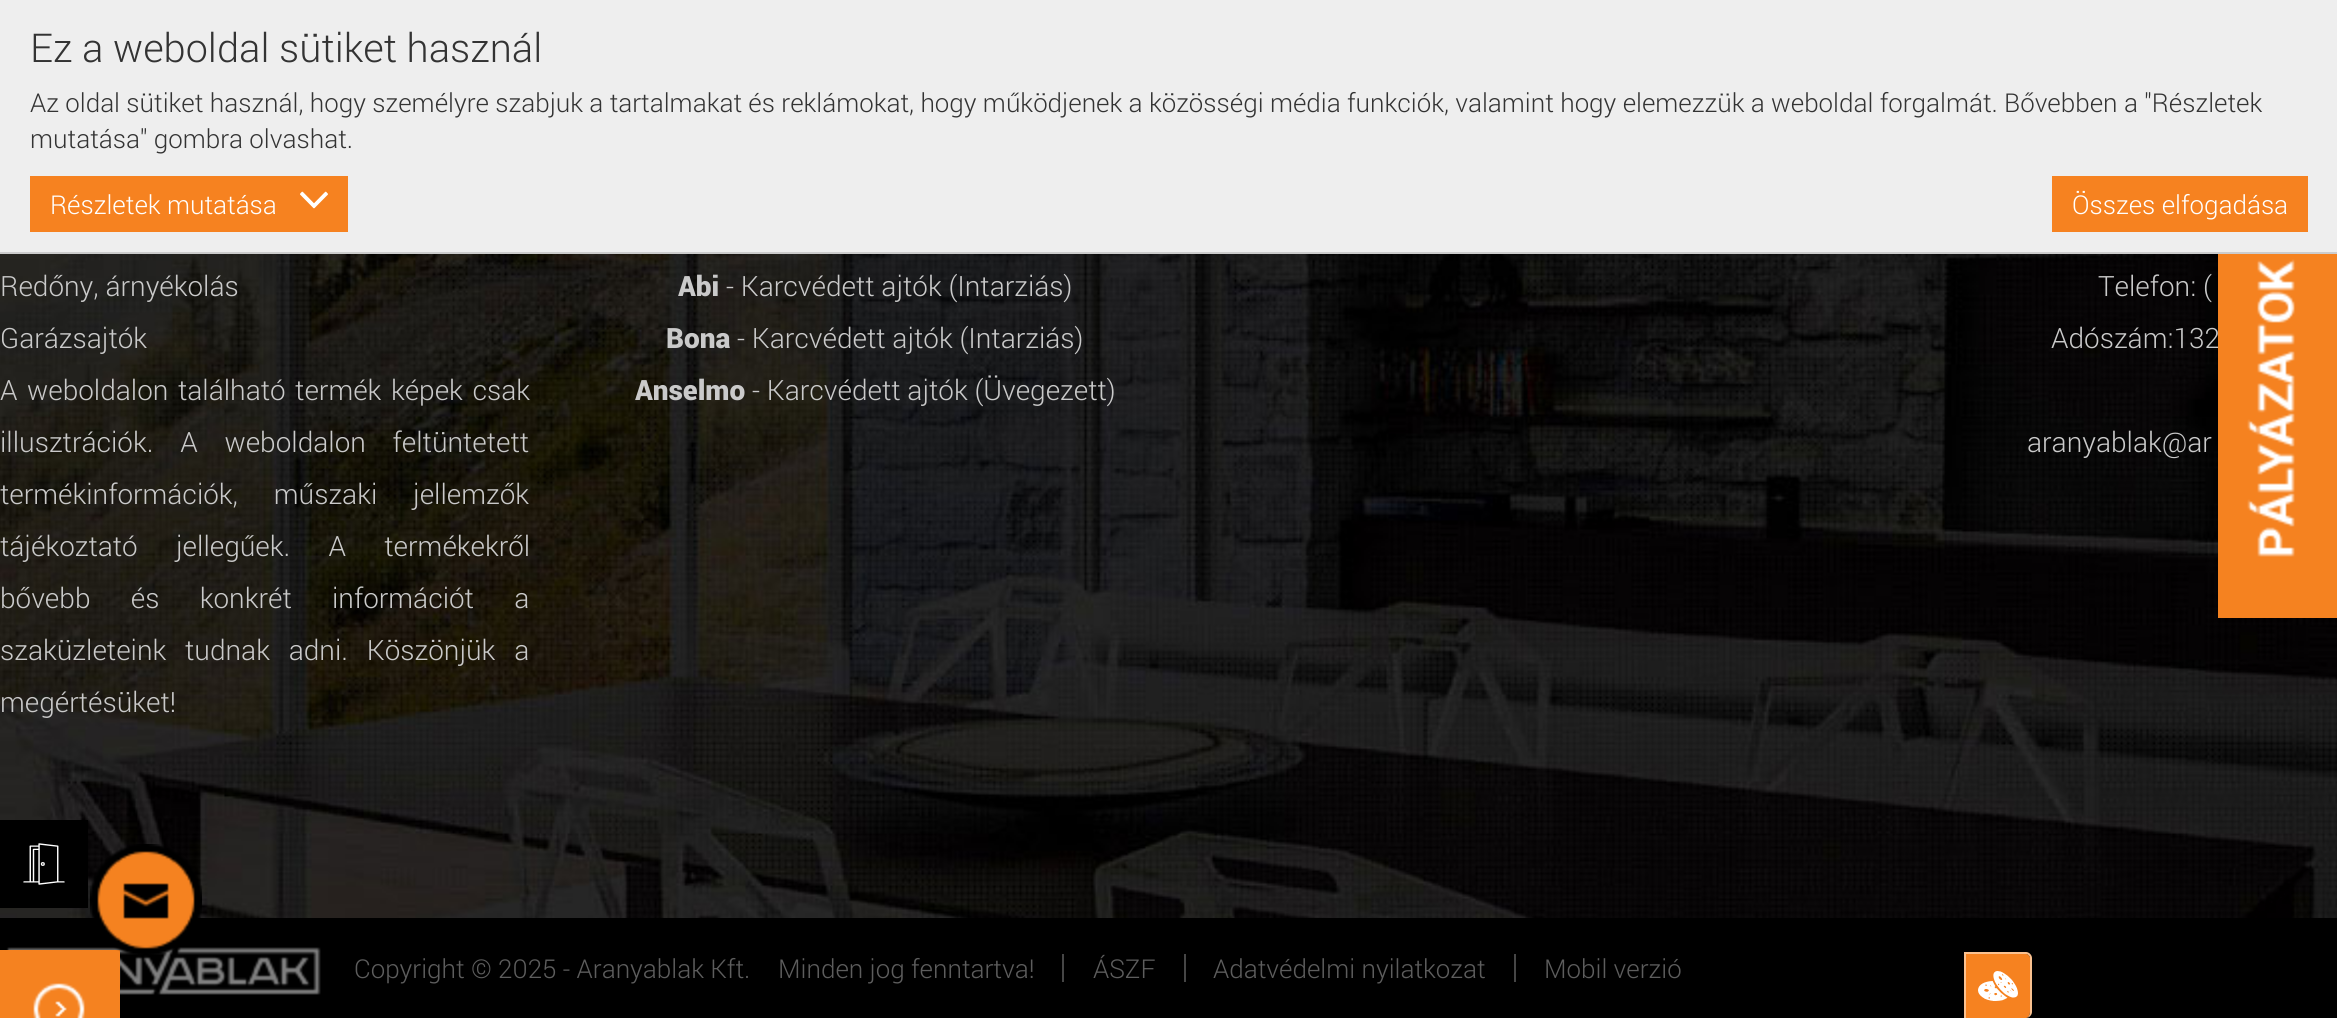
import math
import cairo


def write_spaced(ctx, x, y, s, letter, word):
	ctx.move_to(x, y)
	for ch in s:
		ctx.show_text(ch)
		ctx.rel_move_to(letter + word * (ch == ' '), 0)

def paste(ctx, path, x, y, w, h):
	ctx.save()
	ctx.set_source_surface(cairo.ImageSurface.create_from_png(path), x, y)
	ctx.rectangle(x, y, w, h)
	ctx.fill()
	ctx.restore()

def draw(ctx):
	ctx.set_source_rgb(1, 1, 1)
	ctx.paint()
	ctx.set_source_rgb(0.933, 0.933, 0.933)
	ctx.rectangle(0, 0, 2337, 252)
	ctx.fill()
	ctx.set_source_rgb(0.8, 0.8, 0.8)
	ctx.rectangle(0, 252, 2337, 2)
	ctx.fill()
	ctx.select_font_face('Roboto Light')
	ctx.set_font_size(39.75)
	ctx.set_source_rgb(0.2, 0.2, 0.2)
	ctx.move_to(30, 62)
	ctx.show_text('Ez a weboldal sütiket használ')
	ctx.set_font_size(26)
	ctx.move_to(30, 112)
	ctx.show_text('Az oldal sütiket használ, hogy személyre szabjuk a tartalmakat és reklámokat, hogy működjenek a közösségi média funkciók, valamint hogy elemezzük a weboldal forgalmát. Bővebben a "Részletek')
	ctx.move_to(30, 148)
	ctx.show_text('mutatása" gombra olvashat.')
	ctx.set_source_rgb(0.961, 0.51, 0.125)
	ctx.rectangle(30, 176, 318, 56)
	ctx.fill()
	ctx.set_source_rgb(1, 1, 1)
	ctx.move_to(50, 214)
	ctx.show_text('Részletek mutatása')
	paste(ctx, 'media/1.png', 300, 191, 28, 18)
	ctx.set_source_rgb(0.961, 0.51, 0.125)
	ctx.rectangle(2052, 176, 256, 56)
	ctx.fill()
	ctx.set_source_rgb(1, 1, 1)
	ctx.move_to(2072, 214)
	ctx.show_text('Összes elfogadása')
	paste(ctx, 'media/2.png', 0, 254, 2337, 664)
	ctx.set_font_size(28)
	ctx.set_source_rgb(0.792, 0.792, 0.792)
	ctx.move_to(0, 296)
	ctx.show_text('Redőny, árnyékolás')
	ctx.move_to(0, 348)
	ctx.show_text('Garázsajtók')
	write_spaced(ctx, 0, 400, 'A weboldalon található termék képek csak', 0, 2.75)
	write_spaced(ctx, 0, 452, 'illusztrációk. A weboldalon feltüntetett', 0, 20)
	write_spaced(ctx, 0, 504, 'termékinformációk, műszaki jellemzők', 0, 29)
	write_spaced(ctx, 0, 556, 'tájékoztató jellegűek. A termékekről', 0, 31.5)
	write_spaced(ctx, 0, 608, 'bővebb és konkrét információt a', 0, 33.5)
	write_spaced(ctx, 0, 660, 'szaküzleteink tudnak adni. Köszönjük a', 0, 12)
	ctx.move_to(0, 712)
	ctx.show_text('megértésüket!')
	ctx.select_font_face('Roboto Black')
	ctx.move_to(678, 296)
	ctx.show_text('Abi')
	ctx.select_font_face('Roboto Light')
	ctx.move_to(726, 296)
	ctx.show_text('- Karcvédett ajtók (Intarziás)')
	ctx.select_font_face('Roboto Black')
	ctx.move_to(666, 348)
	ctx.show_text('Bona')
	ctx.select_font_face('Roboto Light')
	ctx.move_to(737, 348)
	ctx.show_text('- Karcvédett ajtók (Intarziás)')
	ctx.select_font_face('Roboto Black')
	ctx.move_to(635, 400)
	ctx.show_text('Anselmo')
	ctx.select_font_face('Roboto Light')
	for x, y, s in [
		(752, 400, '- Karcvédett ajtók (Üvegezett)'),
		(2098, 296, 'Telefon: ('),
		(2051, 348, 'Adószám:132'),
		(2027, 452, 'aranyablak@ar'),
	]:
		ctx.move_to(x, y)
		ctx.show_text(s)
	ctx.set_source_rgb(0, 0, 0)
	ctx.rectangle(0, 918, 2337, 100)
	ctx.fill()
	paste(ctx, 'media/3.png', 6, 947, 315, 48)
	ctx.set_font_size(26)
	ctx.set_source_rgb(0.365, 0.365, 0.365)
	ctx.move_to(354, 978)
	ctx.show_text('Copyright © 2025 - Aranyablak Kft.')
	ctx.set_source_rgb(0.275, 0.275, 0.275)
	ctx.rectangle(1062, 954, 2, 28)
	ctx.fill()
	ctx.set_source_rgb(0.365, 0.365, 0.365)
	ctx.move_to(778, 978)
	ctx.show_text('Minden jog fenntartva!')
	ctx.set_source_rgb(0.275, 0.275, 0.275)
	ctx.rectangle(1184, 954, 2, 28)
	ctx.fill()
	ctx.set_source_rgb(0.365, 0.365, 0.365)
	ctx.move_to(1093, 978)
	ctx.show_text('ÁSZF')
	ctx.set_source_rgb(0.275, 0.275, 0.275)
	ctx.rectangle(1514, 954, 2, 28)
	ctx.fill()
	ctx.set_source_rgb(0.365, 0.365, 0.365)
	ctx.move_to(1213, 978)
	ctx.show_text('Adatvédelmi nyilatkozat')
	ctx.move_to(1544, 978)
	ctx.show_text('Mobil verzió')
	paste(ctx, 'media/4.png', 2218, 254, 119, 364)
	ctx.set_source_rgb(0, 0, 0)
	ctx.rectangle(0, 820, 88, 88)
	ctx.fill()
	paste(ctx, 'media/5.png', 23, 843, 42, 42)
	paste(ctx, 'media/7.png', 0, 950, 120, 68)
	paste(ctx, 'media/6.png', 90, 844, 112, 111)
	ctx.set_source_rgb(0.961, 0.51, 0.125)
	ctx.new_path()
	ctx.move_to(1966, 954)
	ctx.line_to(2026, 954)
	ctx.curve_to(2028, 954, 2030, 956, 2030, 958)
	ctx.line_to(2030, 1012)
	ctx.curve_to(2030, 1015, 2028, 1018, 2026, 1018)
	ctx.line_to(1966, 1018)
	ctx.close_path()
	ctx.fill()
	ctx.set_source_rgb(0.98, 0.757, 0.565)
	ctx.set_fill_rule(cairo.FILL_RULE_EVEN_ODD)
	ctx.new_path()
	ctx.move_to(1964, 952)
	ctx.line_to(2026, 952)
	ctx.curve_to(2029, 952, 2032, 955, 2032, 958)
	ctx.line_to(2032, 1012)
	ctx.curve_to(2032, 1015, 2029, 1018, 2026, 1018)
	ctx.line_to(1964, 1018)
	ctx.close_path()
	ctx.move_to(1966, 954)
	ctx.line_to(2026, 954)
	ctx.curve_to(2028, 954, 2030, 956, 2030, 958)
	ctx.line_to(2030, 1012)
	ctx.curve_to(2030, 1015, 2028, 1018, 2026, 1018)
	ctx.line_to(1966, 1018)
	ctx.close_path()
	ctx.fill()
	paste(ctx, 'media/8.png', 1978, 971, 40, 30)


surface = cairo.ImageSurface(cairo.FORMAT_RGB24, 2337, 1018)
ctx = cairo.Context(surface)
options = cairo.FontOptions()
options.set_hint_metrics(cairo.HINT_METRICS_OFF)
options.set_hint_style(cairo.HINT_STYLE_NONE)
ctx.set_font_options(options)
ctx.set_miter_limit(4)
draw(ctx)
surface.write_to_png('image.png')
